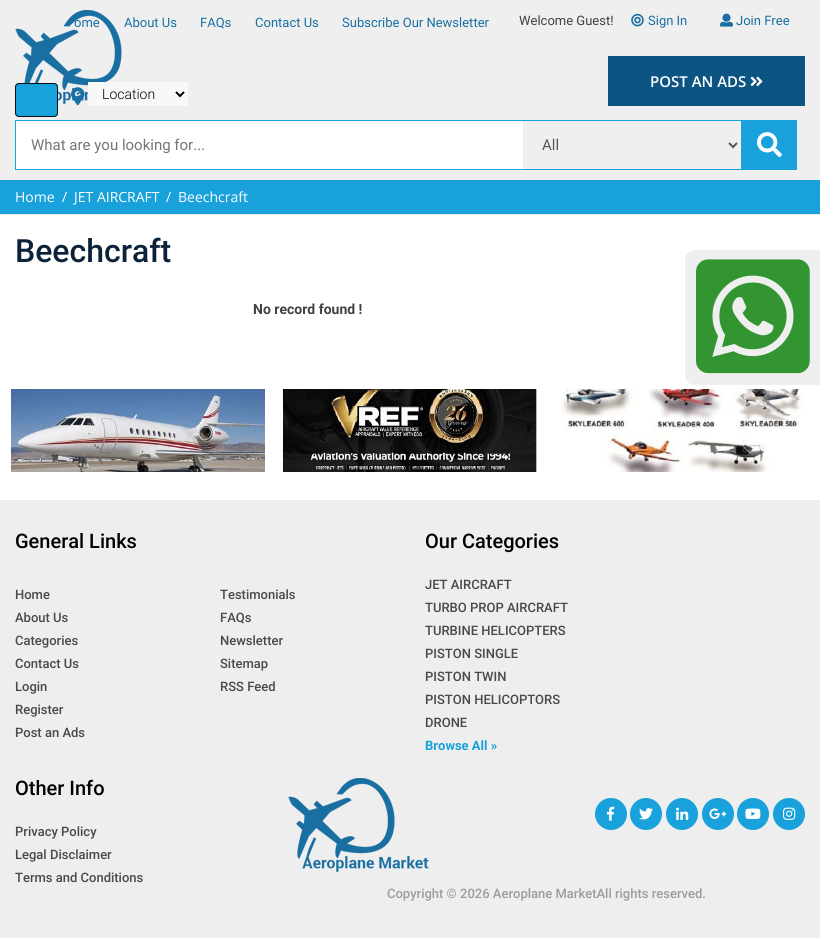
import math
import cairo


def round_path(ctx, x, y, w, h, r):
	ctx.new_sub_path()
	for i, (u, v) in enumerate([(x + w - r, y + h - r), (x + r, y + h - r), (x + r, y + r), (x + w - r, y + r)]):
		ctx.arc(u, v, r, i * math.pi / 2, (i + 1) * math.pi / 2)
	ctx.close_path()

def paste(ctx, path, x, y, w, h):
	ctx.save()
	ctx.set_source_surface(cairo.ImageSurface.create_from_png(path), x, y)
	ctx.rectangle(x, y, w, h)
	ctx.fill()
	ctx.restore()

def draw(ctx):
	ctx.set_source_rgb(1, 1, 1)
	ctx.paint()
	ctx.set_source_rgb(0.937, 0.937, 0.937)
	ctx.rectangle(0, 0, 820, 180)
	ctx.fill()
	paste(ctx, 'media/1.png', 15, 10, 107, 94)
	ctx.select_font_face('Roboto')
	ctx.set_font_size(13)
	ctx.set_source_rgb(0.098, 0.435, 0.631)
	for x, y, s in [
		(74, 27, 'ome'),
		(124, 27, 'About Us'),
		(200, 27, 'FAQs'),
		(255, 27, 'Contact Us'),
		(342, 27, 'Subscribe Our Newsletter'),
	]:
		ctx.move_to(x, y)
		ctx.show_text(s)
	ctx.set_source_rgb(0.255, 0.255, 0.255)
	ctx.move_to(519, 25)
	ctx.show_text('Welcome Guest!')
	paste(ctx, 'media/2.png', 631, 13, 13, 14)
	ctx.set_source_rgb(0.098, 0.435, 0.631)
	ctx.move_to(648, 25)
	ctx.show_text('Sign In')
	paste(ctx, 'media/3.png', 720, 13, 13, 14)
	ctx.move_to(736, 25)
	ctx.show_text('Join Free')
	ctx.set_source_rgb(0.047, 0.329, 0.506)
	ctx.rectangle(608, 56, 197, 50)
	ctx.fill()
	ctx.select_font_face('Open Sans SemiBold')
	ctx.set_font_size(15)
	ctx.set_source_rgb(1, 1, 1)
	ctx.move_to(650, 87)
	ctx.show_text('POST AN ADS')
	paste(ctx, 'media/4.png', 750, 76, 13, 10)
	paste(ctx, 'media/5.png', 71, 87, 14, 19)
	ctx.set_source_rgb(0.969, 0.969, 0.969)
	ctx.rectangle(88, 82, 100, 24)
	ctx.fill()
	ctx.new_path()
	ctx.move_to(176, 92)
	ctx.line_to(180, 96)
	ctx.line_to(184, 92)
	ctx.set_source_rgb(0, 0, 0)
	ctx.stroke()
	ctx.select_font_face('Roboto Light')
	ctx.set_font_size(14)
	ctx.move_to(102, 99)
	ctx.show_text('Location')
	ctx.rectangle(15.5, 120.5, 726, 49)
	ctx.set_source_rgb(0.094, 0.631, 0.859)
	ctx.set_line_width(1)
	ctx.stroke()
	ctx.set_source_rgb(1, 1, 1)
	ctx.rectangle(16, 121, 507, 48)
	ctx.fill()
	ctx.select_font_face('Roboto')
	ctx.set_font_size(15)
	ctx.set_source_rgb(0.459, 0.459, 0.459)
	ctx.move_to(31, 150)
	ctx.show_text('What are you looking for...')
	ctx.new_path()
	ctx.move_to(729, 143)
	ctx.line_to(733, 147)
	ctx.line_to(737, 143)
	ctx.set_source_rgb(0.333, 0.333, 0.333)
	ctx.set_line_width(2)
	ctx.stroke()
	ctx.move_to(542, 150)
	ctx.show_text('All')
	ctx.set_source_rgb(0.094, 0.631, 0.859)
	ctx.rectangle(742, 120, 55, 50)
	ctx.fill()
	paste(ctx, 'media/6.png', 757, 132, 25, 26)
	round_path(ctx, 15, 83, 43, 34, 4)
	ctx.fill()
	round_path(ctx, 15.5, 83.5, 42, 33, 3.5)
	ctx.set_source_rgba(0, 0, 0, 0.9)
	ctx.set_line_width(1)
	ctx.stroke()
	ctx.set_source_rgb(0.937, 0.937, 0.937)
	ctx.new_path()
	ctx.move_to(695, 250)
	ctx.line_to(820, 250)
	ctx.line_to(820, 385)
	ctx.line_to(695, 385)
	ctx.curve_to(689.5, 385, 685, 380.5, 685, 375)
	ctx.line_to(685, 260)
	ctx.curve_to(685, 254.5, 689.5, 250, 695, 250)
	ctx.close_path()
	ctx.fill()
	paste(ctx, 'media/7.png', 696, 259, 114, 115)
	ctx.set_source_rgb(0.094, 0.631, 0.859)
	ctx.rectangle(0, 180, 820, 34)
	ctx.fill()
	ctx.set_source_rgb(0.918, 0.918, 0.918)
	ctx.rectangle(0, 214, 820, 1)
	ctx.fill()
	ctx.select_font_face('Open Sans')
	ctx.set_font_size(14)
	ctx.set_source_rgb(1, 1, 1)
	for x, y, s in [
		(15, 202, 'Home'),
		(62, 202, '/'),
		(74, 202, 'JET AIRCRAFT'),
		(166, 202, '/'),
		(178, 202, 'Beechcraft'),
	]:
		ctx.move_to(x, y)
		ctx.show_text(s)
	ctx.select_font_face('Roboto Medium')
	ctx.set_font_size(32)
	ctx.set_source_rgb(0.043, 0.133, 0.224)
	ctx.move_to(15, 262)
	ctx.show_text('Beechcraft')
	ctx.select_font_face('Roboto', cairo.FONT_SLANT_NORMAL, cairo.FONT_WEIGHT_BOLD)
	ctx.set_font_size(14)
	ctx.set_source_rgb(0.255, 0.255, 0.255)
	ctx.move_to(253, 314)
	ctx.show_text('No record found !')
	paste(ctx, 'media/8.png', 11, 389, 254, 83)
	paste(ctx, 'media/9.png', 283, 389, 254, 83)
	paste(ctx, 'media/10.png', 561, 389, 243, 83)
	ctx.set_source_rgb(0.933, 0.933, 0.933)
	ctx.rectangle(0, 500, 820, 438)
	ctx.fill()
	ctx.select_font_face('Roboto Medium')
	ctx.set_font_size(20)
	ctx.set_source_rgb(0, 0, 0)
	ctx.move_to(15, 548)
	ctx.show_text('General Links')
	ctx.set_font_size(13)
	ctx.set_source_rgb(0.286, 0.286, 0.286)
	for x, y, s in [
		(15, 599, 'Home'),
		(15, 622, 'About Us'),
		(15, 645, 'Categories'),
		(15, 668, 'Contact Us'),
		(15, 691, 'Login'),
		(15, 714, 'Register'),
		(15, 737, 'Post an Ads'),
		(220, 599, 'Testimonials'),
		(220, 622, 'FAQs'),
		(220, 645, 'Newsletter'),
		(220, 668, 'Sitemap'),
		(220, 691, 'RSS Feed'),
	]:
		ctx.move_to(x, y)
		ctx.show_text(s)
	ctx.set_font_size(20)
	ctx.set_source_rgb(0, 0, 0)
	ctx.move_to(425, 548)
	ctx.show_text('Our Categories')
	ctx.set_font_size(13)
	ctx.set_source_rgb(0.286, 0.286, 0.286)
	for x, y, s in [
		(425, 589, 'JET AIRCRAFT'),
		(425, 612, 'TURBO PROP AIRCRAFT'),
		(425, 635, 'TURBINE HELICOPTERS'),
		(425, 658, 'PISTON SINGLE'),
		(425, 681, 'PISTON TWIN'),
		(425, 704, 'PISTON HELICOPTORS'),
		(425, 727, 'DRONE'),
	]:
		ctx.move_to(x, y)
		ctx.show_text(s)
	ctx.select_font_face('Roboto', cairo.FONT_SLANT_NORMAL, cairo.FONT_WEIGHT_BOLD)
	ctx.set_source_rgb(0.094, 0.631, 0.859)
	ctx.move_to(425, 750)
	ctx.show_text('Browse All »')
	ctx.select_font_face('Roboto Medium')
	ctx.set_font_size(20)
	ctx.set_source_rgb(0, 0, 0)
	ctx.move_to(15, 795)
	ctx.show_text('Other Info')
	ctx.set_font_size(13)
	ctx.set_source_rgb(0.286, 0.286, 0.286)
	for x, y, s in [
		(15, 836, 'Privacy Policy'),
		(15, 859, 'Legal Disclaimer'),
		(15, 882, 'Terms and Conditions'),
	]:
		ctx.move_to(x, y)
		ctx.show_text(s)
	paste(ctx, 'media/11.png', 288, 778, 141, 94)
	ctx.set_source_rgb(0.094, 0.631, 0.859)
	ctx.arc(611, 814, 16, 0, 2 * math.pi)
	ctx.fill()
	paste(ctx, 'media/12.png', 607, 806, 8, 15)
	ctx.arc(646, 814, 16, 0, 2 * math.pi)
	ctx.fill()
	paste(ctx, 'media/13.png', 639, 808, 14, 12)
	ctx.arc(682, 814, 16, 0, 2 * math.pi)
	ctx.fill()
	paste(ctx, 'media/14.png', 676, 807, 13, 13)
	ctx.arc(718, 814, 16, 0, 2 * math.pi)
	ctx.fill()
	paste(ctx, 'media/15.png', 709, 808, 18, 11)
	ctx.arc(753, 814, 16, 0, 2 * math.pi)
	ctx.fill()
	paste(ctx, 'media/16.png', 745, 808, 16, 11)
	ctx.arc(789, 814, 16, 0, 2 * math.pi)
	ctx.fill()
	paste(ctx, 'media/17.png', 783, 807, 13, 13)
	ctx.set_source_rgb(0.612, 0.612, 0.612)
	ctx.move_to(387, 898)
	ctx.show_text('Copyright © 2026 Aeroplane MarketAll rights reserved.')


surface = cairo.ImageSurface(cairo.FORMAT_RGB24, 820, 938)
ctx = cairo.Context(surface)
options = cairo.FontOptions()
options.set_hint_metrics(cairo.HINT_METRICS_OFF)
options.set_hint_style(cairo.HINT_STYLE_NONE)
ctx.set_font_options(options)
ctx.set_miter_limit(4)
draw(ctx)
surface.write_to_png('image.png')
